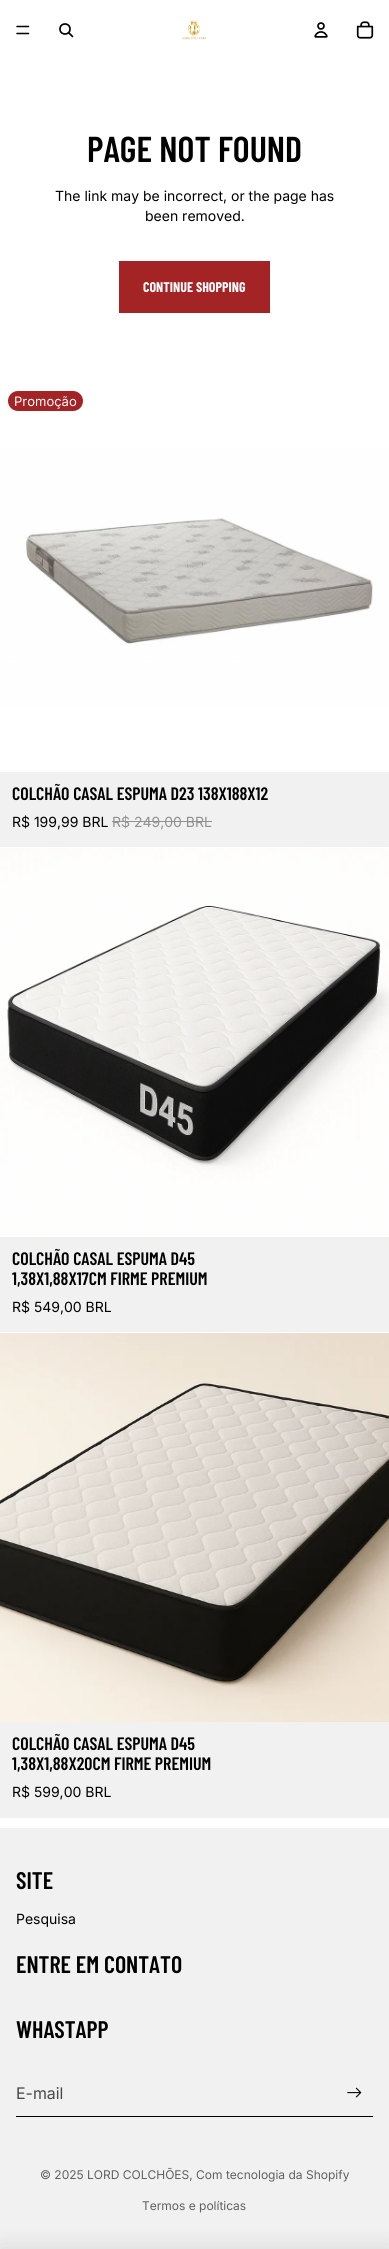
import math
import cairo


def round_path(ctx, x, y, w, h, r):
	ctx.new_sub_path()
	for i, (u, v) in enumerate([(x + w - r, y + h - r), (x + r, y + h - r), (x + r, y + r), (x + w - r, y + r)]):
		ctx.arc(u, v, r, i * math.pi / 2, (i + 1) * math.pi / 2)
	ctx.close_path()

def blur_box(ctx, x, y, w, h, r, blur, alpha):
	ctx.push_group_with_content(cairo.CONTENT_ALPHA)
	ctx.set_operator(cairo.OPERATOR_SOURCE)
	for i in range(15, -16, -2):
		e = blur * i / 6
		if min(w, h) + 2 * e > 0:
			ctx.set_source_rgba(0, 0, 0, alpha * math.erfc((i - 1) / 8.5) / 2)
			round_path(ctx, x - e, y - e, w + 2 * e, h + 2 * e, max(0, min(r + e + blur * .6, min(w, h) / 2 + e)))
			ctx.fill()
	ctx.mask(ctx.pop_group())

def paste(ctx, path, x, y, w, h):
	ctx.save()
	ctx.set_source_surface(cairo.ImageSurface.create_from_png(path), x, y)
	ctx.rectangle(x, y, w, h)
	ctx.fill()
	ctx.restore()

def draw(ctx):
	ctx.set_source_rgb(1, 1, 1)
	ctx.paint()
	ctx.new_path()
	ctx.move_to(17, 26.5)
	ctx.line_to(28.5, 26.5)
	ctx.move_to(17, 33.5)
	ctx.line_to(28.5, 33.5)
	ctx.set_source_rgb(0, 0, 0)
	ctx.set_line_width(1.5)
	ctx.set_line_cap(cairo.LINE_CAP_ROUND)
	ctx.stroke()
	ctx.arc(65, 29, 5, 0, 2 * math.pi)
	ctx.set_line_width(1.7)
	ctx.set_line_cap(cairo.LINE_CAP_BUTT)
	ctx.stroke()
	ctx.new_path()
	ctx.move_to(69, 33)
	ctx.line_to(72.5, 36.5)
	ctx.set_line_cap(cairo.LINE_CAP_ROUND)
	ctx.set_line_join(cairo.LINE_JOIN_ROUND)
	ctx.stroke()
	paste(ctx, 'media/1.png', 182, 20, 24, 20)
	paste(ctx, 'media/2.png', 314, 22, 14, 16)
	paste(ctx, 'media/3.png', 356, 21, 18, 18)
	ctx.select_font_face('Barlow Condensed SemiBold')
	ctx.set_font_size(36)
	ctx.move_to(87, 162)
	ctx.show_text('PAGE NOT FOUND')
	ctx.select_font_face('Inter')
	ctx.set_font_size(14)
	ctx.move_to(55, 201)
	ctx.show_text('The link may be incorrect, or the page has')
	ctx.move_to(145, 221)
	ctx.show_text('been removed.')
	ctx.set_source_rgb(0.643, 0.137, 0.145)
	ctx.rectangle(119, 261, 151, 52)
	ctx.fill()
	ctx.select_font_face('Barlow Condensed', cairo.FONT_SLANT_NORMAL, cairo.FONT_WEIGHT_BOLD)
	ctx.set_source_rgb(1, 1, 1)
	ctx.move_to(143, 292)
	ctx.show_text('CONTINUE SHOPPING')
	ctx.set_source_rgb(0.945, 0.945, 0.945)
	ctx.rectangle(0, 772, 389, 75)
	ctx.fill()
	paste(ctx, 'media/4.png', 0, 383, 389, 389)
	ctx.set_source_rgb(0.643, 0.137, 0.145)
	round_path(ctx, 8, 391, 75, 20, 10)
	ctx.fill()
	ctx.select_font_face('Inter')
	ctx.set_font_size(13)
	ctx.set_source_rgb(1, 1, 1)
	ctx.move_to(14, 406)
	ctx.show_text('Promoção')
	ctx.select_font_face('Barlow Condensed SemiBold')
	ctx.set_font_size(18)
	ctx.set_source_rgb(0, 0, 0)
	ctx.move_to(12, 800)
	ctx.show_text('COLCHÃO CASAL ESPUMA D23 138X188X12')
	ctx.select_font_face('Inter')
	ctx.set_font_size(14)
	ctx.move_to(12, 827)
	ctx.show_text('R$ 199,99 BRL')
	ctx.set_source_rgb(0.569, 0.569, 0.569)
	ctx.move_to(112, 827)
	ctx.show_text('R$ 249,00 BRL')
	ctx.rectangle(112, 821, 100, 1)
	ctx.fill()
	ctx.set_source_rgb(0.945, 0.945, 0.945)
	ctx.rectangle(0, 1237, 389, 95)
	ctx.fill()
	paste(ctx, 'media/5.png', 0, 848, 389, 389)
	ctx.select_font_face('Barlow Condensed SemiBold')
	ctx.set_font_size(18)
	ctx.set_source_rgb(0, 0, 0)
	ctx.move_to(12, 1265)
	ctx.show_text('COLCHÃO CASAL ESPUMA D45')
	ctx.move_to(12, 1285)
	ctx.show_text('1,38X1,88X17CM FIRME PREMIUM')
	ctx.select_font_face('Inter')
	ctx.set_font_size(14)
	ctx.move_to(12, 1312)
	ctx.show_text('R$ 549,00 BRL')
	ctx.set_source_rgb(0.945, 0.945, 0.945)
	ctx.rectangle(0, 1722, 389, 96)
	ctx.fill()
	paste(ctx, 'media/6.png', 0, 1333, 389, 389)
	ctx.select_font_face('Barlow Condensed SemiBold')
	ctx.set_font_size(18)
	ctx.set_source_rgb(0, 0, 0)
	ctx.move_to(12, 1750)
	ctx.show_text('COLCHÃO CASAL ESPUMA D45')
	ctx.move_to(12, 1770)
	ctx.show_text('1,38X1,88X20CM FIRME PREMIUM')
	ctx.select_font_face('Inter')
	ctx.set_font_size(14)
	ctx.move_to(12, 1797)
	ctx.show_text('R$ 599,00 BRL')
	ctx.set_source_rgb(0.945, 0.945, 0.945)
	ctx.rectangle(0, 1828, 389, 421)
	ctx.fill()
	ctx.select_font_face('Barlow Condensed SemiBold')
	ctx.set_font_size(24)
	ctx.set_source_rgb(0, 0, 0)
	ctx.move_to(16, 1889)
	ctx.show_text('SITE')
	ctx.select_font_face('Inter')
	ctx.set_font_size(14)
	ctx.move_to(16, 1924)
	ctx.show_text('Pesquisa')
	ctx.select_font_face('Barlow Condensed SemiBold')
	ctx.set_font_size(24)
	ctx.move_to(16, 1973)
	ctx.show_text('ENTRE EM CONTATO')
	ctx.move_to(16, 2038)
	ctx.show_text('WHASTAPP')
	ctx.rectangle(16, 2116, 357, 1)
	ctx.fill()
	ctx.select_font_face('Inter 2')
	ctx.set_font_size(16)
	ctx.set_source_rgb(0.282, 0.282, 0.282)
	ctx.move_to(16, 2099)
	ctx.show_text('E-mail')
	paste(ctx, 'media/7.png', 347, 2087, 15, 11)
	ctx.select_font_face('Inter')
	ctx.set_font_size(12)
	ctx.set_source_rgb(0.376, 0.376, 0.376)
	ctx.move_to(40, 2179)
	ctx.show_text('© 2025 LORD COLCHÕES, Com tecnologia da Shopify')
	ctx.set_source_rgb(0, 0, 0)
	blur_box(ctx, 0, 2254, 389, 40, 0, 15, 0.15)
	ctx.set_source_rgb(0.376, 0.376, 0.376)
	ctx.move_to(142, 2210)
	ctx.show_text('Termos e políticas')


surface = cairo.ImageSurface(cairo.FORMAT_RGB24, 389, 2249)
ctx = cairo.Context(surface)
options = cairo.FontOptions()
options.set_hint_metrics(cairo.HINT_METRICS_OFF)
options.set_hint_style(cairo.HINT_STYLE_NONE)
ctx.set_font_options(options)
ctx.set_miter_limit(4)
draw(ctx)
surface.write_to_png('image.png')
